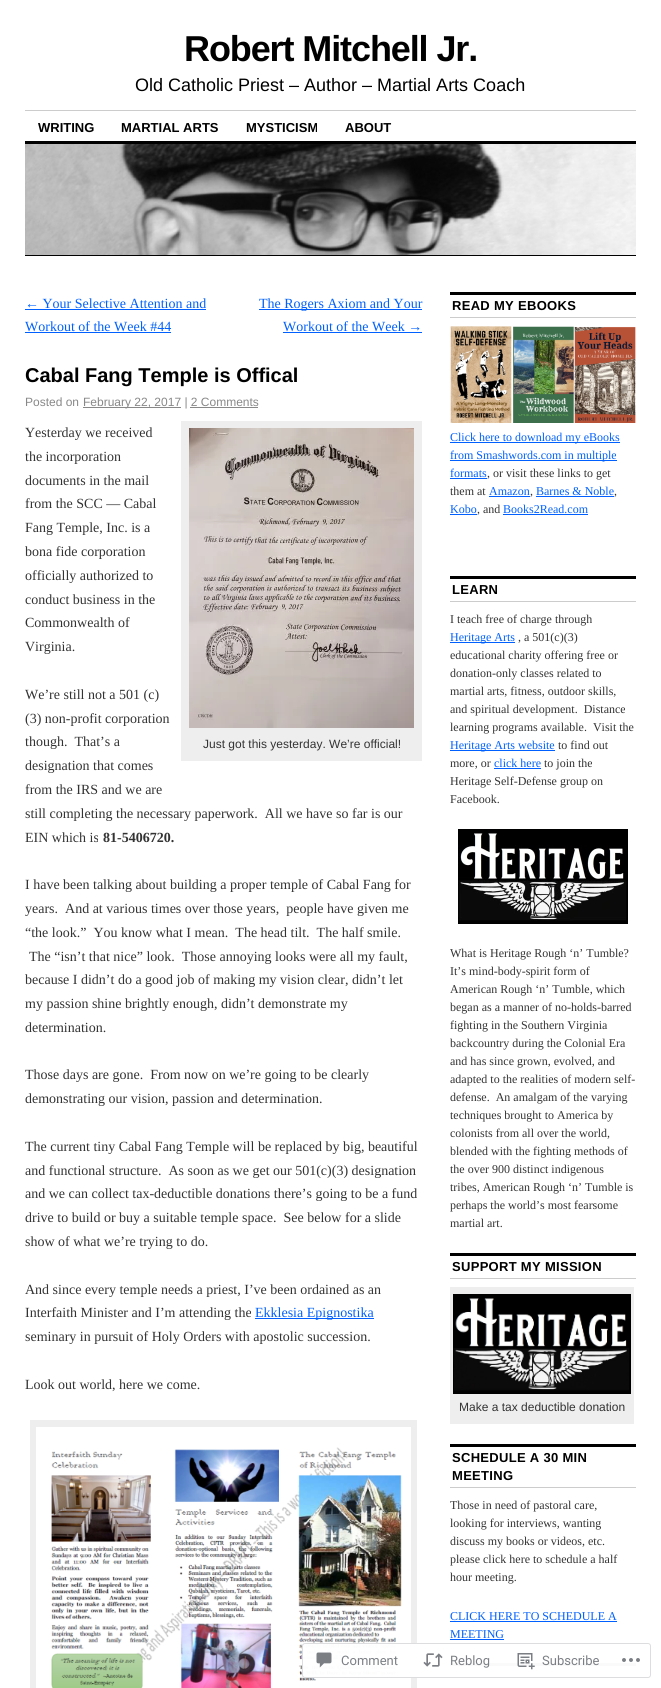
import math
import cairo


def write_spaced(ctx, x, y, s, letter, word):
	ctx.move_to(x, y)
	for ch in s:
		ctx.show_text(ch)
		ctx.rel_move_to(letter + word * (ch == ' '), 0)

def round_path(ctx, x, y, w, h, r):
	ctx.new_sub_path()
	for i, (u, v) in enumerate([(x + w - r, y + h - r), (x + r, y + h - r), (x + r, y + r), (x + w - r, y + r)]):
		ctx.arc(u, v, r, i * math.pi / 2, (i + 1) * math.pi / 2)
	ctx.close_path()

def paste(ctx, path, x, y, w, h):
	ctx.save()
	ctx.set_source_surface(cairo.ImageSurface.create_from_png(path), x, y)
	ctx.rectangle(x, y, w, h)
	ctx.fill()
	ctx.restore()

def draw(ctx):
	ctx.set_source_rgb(1, 1, 1)
	ctx.paint()
	ctx.select_font_face('Liberation Sans', cairo.FONT_SLANT_NORMAL, cairo.FONT_WEIGHT_BOLD)
	ctx.set_font_size(36)
	ctx.set_source_rgb(0, 0, 0)
	write_spaced(ctx, 184, 61, 'Robert Mitchell Jr.', -1.1, 0)
	ctx.select_font_face('Liberation Sans')
	ctx.set_font_size(18)
	ctx.move_to(135, 91)
	ctx.show_text('Old Catholic Priest – Author – Martial Arts Coach')
	ctx.set_source_rgb(0.8, 0.8, 0.8)
	ctx.rectangle(25, 110, 611, 1)
	ctx.fill()
	ctx.select_font_face('Liberation Sans', cairo.FONT_SLANT_NORMAL, cairo.FONT_WEIGHT_BOLD)
	ctx.set_font_size(13)
	ctx.set_source_rgb(0, 0, 0)
	for x, y, s in [
		(38, 132, 'WRITING'),
		(121, 132, 'MARTIAL ARTS'),
		(246, 132, 'MYSTICISM'),
		(345, 132, 'ABOUT'),
	]:
		ctx.move_to(x, y)
		ctx.show_text(s)
	ctx.rectangle(25, 141, 611, 3)
	ctx.fill()
	paste(ctx, 'media/1.png', 25, 144, 611, 111)
	ctx.rectangle(25, 255, 611, 1)
	ctx.fill()
	ctx.select_font_face('Liberation Serif')
	ctx.set_font_size(14)
	ctx.set_source_rgb(0, 0.376, 1)
	ctx.move_to(25, 308)
	ctx.show_text('← Your Selective Attention and')
	ctx.rectangle(25, 309, 181, 1)
	ctx.fill()
	ctx.move_to(25, 331)
	ctx.show_text('Workout of the Week #44')
	ctx.rectangle(25, 332, 146, 1)
	ctx.fill()
	ctx.rectangle(259, 309, 163, 1)
	ctx.fill()
	ctx.move_to(259, 308)
	ctx.show_text('The Rogers Axiom and Your')
	ctx.move_to(283, 331)
	ctx.show_text('Workout of the Week →')
	ctx.rectangle(283, 332, 139, 1)
	ctx.fill()
	ctx.select_font_face('Liberation Sans', cairo.FONT_SLANT_NORMAL, cairo.FONT_WEIGHT_BOLD)
	ctx.set_font_size(20)
	ctx.set_source_rgb(0, 0, 0)
	ctx.move_to(25, 382)
	ctx.show_text('Cabal Fang Temple is Offical')
	ctx.select_font_face('Liberation Sans')
	ctx.set_font_size(12)
	ctx.set_source_rgb(0.533, 0.533, 0.533)
	ctx.move_to(25, 406)
	ctx.show_text('Posted on')
	ctx.rectangle(83, 407, 98, 1)
	ctx.fill()
	ctx.move_to(83, 406)
	ctx.show_text('February 22, 2017 | 2 Comments')
	ctx.rectangle(190, 407, 68, 1)
	ctx.fill()
	ctx.select_font_face('Liberation Serif')
	ctx.set_font_size(14)
	ctx.set_source_rgb(0.2, 0.2, 0.2)
	for x, y, s in [
		(25, 437, 'Yesterday we received'),
		(25, 461, 'the incorporation'),
		(25, 485, 'documents in the mail'),
		(25, 508, 'from the SCC — Cabal'),
		(25, 532, 'Fang Temple, Inc. is a'),
		(25, 556, 'bona fide corporation'),
		(25, 580, 'officially authorized to'),
		(25, 604, 'conduct business in the'),
		(25, 627, 'Commonwealth of'),
		(25, 651, 'Virginia.'),
		(25, 699, 'We’re still not a 501 (c)'),
		(25, 723, '(3) non-profit corporation'),
		(25, 746, 'though.  That’s a'),
		(25, 770, 'designation that comes'),
		(25, 794, 'from the IRS and we are'),
		(25, 818, 'still completing the necessary paperwork.  All we have so far is our'),
		(25, 842, 'EIN which is'),
	]:
		ctx.move_to(x, y)
		ctx.show_text(s)
	ctx.select_font_face('Liberation Serif', cairo.FONT_SLANT_NORMAL, cairo.FONT_WEIGHT_BOLD)
	ctx.move_to(103, 842)
	ctx.show_text('81-5406720.')
	ctx.set_source_rgb(0.933, 0.933, 0.933)
	ctx.rectangle(181, 421, 241, 340)
	ctx.fill()
	paste(ctx, 'media/2.png', 189, 428, 225, 300)
	ctx.select_font_face('Liberation Sans')
	ctx.set_font_size(12)
	ctx.set_source_rgb(0.2, 0.2, 0.2)
	ctx.move_to(203, 748)
	ctx.show_text('Just got this yesterday. We’re official!')
	ctx.select_font_face('Liberation Serif')
	ctx.set_font_size(14)
	for x, y, s in [
		(25, 889, 'I have been talking about building a proper temple of Cabal Fang for'),
		(25, 913, 'years.  And at various times over those years,  people have given me'),
		(25, 937, '“the look.”  You know what I mean.  The head tilt.  The half smile.'),
		(29, 961, 'The “isn’t that nice” look.  Those annoying looks were all my fault,'),
		(25, 984, 'because I didn’t do a good job of making my vision clear, didn’t let'),
		(25, 1008, 'my passion shine brightly enough, didn’t demonstrate my'),
		(25, 1032, 'determination.'),
		(25, 1079, 'Those days are gone.  From now on we’re going to be clearly'),
		(25, 1103, 'demonstrating our vision, passion and determination.'),
		(25, 1151, 'The current tiny Cabal Fang Temple will be replaced by big, beautiful'),
		(25, 1175, 'and functional structure.  As soon as we get our 501(c)(3) designation'),
		(25, 1198, 'and we can collect tax-deductible donations there’s going to be a fund'),
		(25, 1222, 'drive to build or buy a suitable temple space.  See below for a slide'),
		(25, 1246, 'show of what we’re trying to do.'),
		(25, 1294, 'And since every temple needs a priest, I’ve been ordained as an'),
		(25, 1317, 'Interfaith Minister and I’m attending the'),
	]:
		ctx.move_to(x, y)
		ctx.show_text(s)
	ctx.set_source_rgb(0, 0.376, 1)
	ctx.rectangle(255, 1318, 119, 1)
	ctx.fill()
	ctx.move_to(255, 1317)
	ctx.show_text('Ekklesia Epignostika')
	ctx.set_source_rgb(0.2, 0.2, 0.2)
	ctx.move_to(25, 1341)
	ctx.show_text('seminary in pursuit of Holy Orders with apostolic succession.')
	ctx.move_to(25, 1389)
	ctx.show_text('Look out world, here we come.')
	ctx.set_source_rgb(0.933, 0.933, 0.933)
	ctx.rectangle(30, 1420, 387, 268)
	ctx.fill()
	paste(ctx, 'media/3.png', 36, 1427, 375, 261)
	ctx.set_source_rgb(0, 0, 0)
	ctx.rectangle(450, 292, 186, 3)
	ctx.fill()
	ctx.set_source_rgb(0.8, 0.8, 0.8)
	ctx.rectangle(450, 317, 186, 1)
	ctx.fill()
	ctx.select_font_face('Liberation Sans', cairo.FONT_SLANT_NORMAL, cairo.FONT_WEIGHT_BOLD)
	ctx.set_font_size(13)
	ctx.set_source_rgb(0, 0, 0)
	write_spaced(ctx, 452, 310, 'READ MY EBOOKS', 0.3, 0)
	paste(ctx, 'media/4.png', 450, 326, 186, 97)
	ctx.set_source_rgb(0, 0.376, 1)
	ctx.rectangle(450, 442, 170, 1)
	ctx.fill()
	ctx.select_font_face('Liberation Serif')
	ctx.set_font_size(12)
	ctx.move_to(450, 441)
	ctx.show_text('Click here to download my eBooks')
	ctx.rectangle(450, 460, 167, 1)
	ctx.fill()
	ctx.move_to(450, 459)
	ctx.show_text('from Smashwords.com in multiple')
	ctx.move_to(450, 477)
	ctx.show_text('formats')
	ctx.rectangle(450, 478, 37, 1)
	ctx.fill()
	ctx.set_source_rgb(0.2, 0.2, 0.2)
	ctx.move_to(487, 477)
	ctx.show_text(', or visit these links to get')
	ctx.move_to(450, 495)
	ctx.show_text('them at')
	ctx.set_source_rgb(0, 0.376, 1)
	ctx.move_to(489, 495)
	ctx.show_text('Amazon')
	ctx.rectangle(489, 496, 41, 1)
	ctx.fill()
	ctx.set_source_rgb(0.2, 0.2, 0.2)
	ctx.move_to(530, 495)
	ctx.show_text(',')
	ctx.set_source_rgb(0, 0.376, 1)
	ctx.move_to(536, 495)
	ctx.show_text('Barnes & Noble')
	ctx.rectangle(536, 496, 78, 1)
	ctx.fill()
	ctx.set_source_rgb(0.2, 0.2, 0.2)
	ctx.move_to(614, 495)
	ctx.show_text(',')
	ctx.set_source_rgb(0, 0.376, 1)
	ctx.move_to(450, 513)
	ctx.show_text('Kobo')
	ctx.rectangle(450, 514, 27, 1)
	ctx.fill()
	ctx.set_source_rgb(0.2, 0.2, 0.2)
	ctx.move_to(477, 513)
	ctx.show_text(', and')
	ctx.set_source_rgb(0, 0.376, 1)
	ctx.move_to(503, 513)
	ctx.show_text('Books2Read.com')
	ctx.rectangle(503, 514, 85, 1)
	ctx.fill()
	ctx.set_source_rgb(0, 0, 0)
	ctx.rectangle(450, 576, 186, 3)
	ctx.fill()
	ctx.set_source_rgb(0.8, 0.8, 0.8)
	ctx.rectangle(450, 601, 186, 1)
	ctx.fill()
	ctx.select_font_face('Liberation Sans', cairo.FONT_SLANT_NORMAL, cairo.FONT_WEIGHT_BOLD)
	ctx.set_font_size(13)
	ctx.set_source_rgb(0, 0, 0)
	write_spaced(ctx, 452, 594, 'LEARN', 0.3, 0)
	ctx.select_font_face('Liberation Serif')
	ctx.set_font_size(12)
	ctx.set_source_rgb(0.2, 0.2, 0.2)
	ctx.move_to(450, 623)
	ctx.show_text('I teach free of charge through')
	ctx.set_source_rgb(0, 0.376, 1)
	ctx.rectangle(450, 642, 65, 1)
	ctx.fill()
	ctx.move_to(450, 641)
	ctx.show_text('Heritage Arts')
	ctx.set_source_rgb(0.2, 0.2, 0.2)
	for x, y, s in [
		(518, 641, ', a 501(c)(3)'),
		(450, 659, 'educational charity offering free or'),
		(450, 677, 'donation-only classes related to'),
		(450, 695, 'martial arts, fitness, outdoor skills,'),
		(450, 713, 'and spiritual development.  Distance'),
		(450, 731, 'learning programs available.  Visit the'),
	]:
		ctx.move_to(x, y)
		ctx.show_text(s)
	ctx.set_source_rgb(0, 0.376, 1)
	ctx.rectangle(450, 750, 105, 1)
	ctx.fill()
	ctx.move_to(450, 749)
	ctx.show_text('Heritage Arts website')
	ctx.set_source_rgb(0.2, 0.2, 0.2)
	ctx.move_to(558, 749)
	ctx.show_text('to find out')
	ctx.move_to(450, 767)
	ctx.show_text('more, or')
	ctx.set_source_rgb(0, 0.376, 1)
	ctx.move_to(494, 767)
	ctx.show_text('click here')
	ctx.rectangle(494, 768, 47, 1)
	ctx.fill()
	ctx.set_source_rgb(0.2, 0.2, 0.2)
	for x, y, s in [
		(544, 767, 'to join the'),
		(450, 785, 'Heritage Self-Defense group on'),
		(450, 803, 'Facebook.'),
	]:
		ctx.move_to(x, y)
		ctx.show_text(s)
	paste(ctx, 'media/5.png', 458, 829, 170, 95)
	for x, y, s in [
		(450, 957, 'What is Heritage Rough ‘n’ Tumble?'),
		(450, 975, 'It’s mind-body-spirit form of'),
		(450, 993, 'American Rough ‘n’ Tumble, which'),
		(450, 1011, 'began as a manner of no-holds-barred'),
		(450, 1029, 'fighting in the Southern Virginia'),
		(450, 1047, 'backcountry during the Colonial Era'),
		(450, 1065, 'and has since grown, evolved, and'),
		(450, 1083, 'adapted to the realities of modern self-'),
		(450, 1101, 'defense.  An amalgam of the varying'),
		(450, 1119, 'techniques brought to America by'),
		(450, 1137, 'colonists from all over the world,'),
		(450, 1155, 'blended with the fighting methods of'),
		(450, 1173, 'the over 900 distinct indigenous'),
		(450, 1191, 'tribes, American Rough ‘n’ Tumble is'),
		(450, 1209, 'perhaps the world’s most fearsome'),
		(450, 1227, 'martial art.'),
	]:
		ctx.move_to(x, y)
		ctx.show_text(s)
	ctx.set_source_rgb(0, 0, 0)
	ctx.rectangle(450, 1253, 186, 3)
	ctx.fill()
	ctx.set_source_rgb(0.8, 0.8, 0.8)
	ctx.rectangle(450, 1278, 186, 1)
	ctx.fill()
	ctx.select_font_face('Liberation Sans', cairo.FONT_SLANT_NORMAL, cairo.FONT_WEIGHT_BOLD)
	ctx.set_font_size(13)
	ctx.set_source_rgb(0, 0, 0)
	write_spaced(ctx, 452, 1271, 'SUPPORT MY MISSION', 0.3, 0)
	ctx.set_source_rgb(0.933, 0.933, 0.933)
	ctx.rectangle(450, 1287, 184, 137)
	ctx.fill()
	paste(ctx, 'media/6.png', 453, 1294, 178, 100)
	ctx.select_font_face('Liberation Sans')
	ctx.set_font_size(12)
	ctx.set_source_rgb(0.2, 0.2, 0.2)
	ctx.move_to(459, 1411)
	ctx.show_text('Make a tax deductible donation')
	ctx.set_source_rgb(0, 0, 0)
	ctx.rectangle(450, 1444, 186, 3)
	ctx.fill()
	ctx.set_source_rgb(0.8, 0.8, 0.8)
	ctx.rectangle(450, 1487, 186, 1)
	ctx.fill()
	ctx.select_font_face('Liberation Sans', cairo.FONT_SLANT_NORMAL, cairo.FONT_WEIGHT_BOLD)
	ctx.set_font_size(13)
	ctx.set_source_rgb(0, 0, 0)
	write_spaced(ctx, 452, 1462, 'SCHEDULE A 30 MIN', 0.3, 0)
	write_spaced(ctx, 452, 1480, 'MEETING', 0.3, 0)
	ctx.select_font_face('Liberation Serif')
	ctx.set_font_size(12)
	ctx.set_source_rgb(0.2, 0.2, 0.2)
	for x, y, s in [
		(450, 1509, 'Those in need of pastoral care,'),
		(450, 1527, 'looking for interviews, wanting'),
		(450, 1545, 'discuss my books or videos, etc.'),
		(450, 1563, 'please click here to schedule a half'),
		(450, 1581, 'hour meeting.'),
	]:
		ctx.move_to(x, y)
		ctx.show_text(s)
	ctx.set_source_rgb(0, 0.376, 1)
	ctx.move_to(450, 1620)
	ctx.show_text('CLICK HERE TO SCHEDULE A')
	ctx.rectangle(450, 1621, 167, 1)
	ctx.fill()
	ctx.move_to(450, 1638)
	ctx.show_text('MEETING')
	ctx.rectangle(450, 1639, 54, 1)
	ctx.fill()
	ctx.set_source_rgb(0, 0, 0)
	ctx.rectangle(450, 1663, 186, 3)
	ctx.fill()
	ctx.set_source_rgba(1, 1, 1, 0.98)
	round_path(ctx, 302, 1643, 349, 35, 3)
	ctx.fill()
	round_path(ctx, 302.5, 1643.5, 348, 34, 2.5)
	ctx.set_source_rgba(0.863, 0.863, 0.871, 0.98)
	ctx.set_line_width(1)
	ctx.stroke()
	paste(ctx, 'media/7.png', 316, 1652, 16, 16)
	ctx.select_font_face('Roboto')
	ctx.set_font_size(13)
	ctx.set_source_rgb(0.482, 0.498, 0.518)
	ctx.move_to(341, 1665)
	ctx.show_text('Comment')
	paste(ctx, 'media/8.png', 423, 1653, 20, 14)
	ctx.move_to(450, 1665)
	ctx.show_text('Reblog')
	paste(ctx, 'media/9.png', 517, 1653, 18, 17)
	ctx.move_to(542, 1665)
	ctx.show_text('Subscribe')
	paste(ctx, 'media/10.png', 622, 1658, 18, 4)


surface = cairo.ImageSurface(cairo.FORMAT_RGB24, 661, 1688)
ctx = cairo.Context(surface)
options = cairo.FontOptions()
options.set_hint_metrics(cairo.HINT_METRICS_OFF)
options.set_hint_style(cairo.HINT_STYLE_NONE)
ctx.set_font_options(options)
ctx.set_miter_limit(4)
draw(ctx)
surface.write_to_png('image.png')
